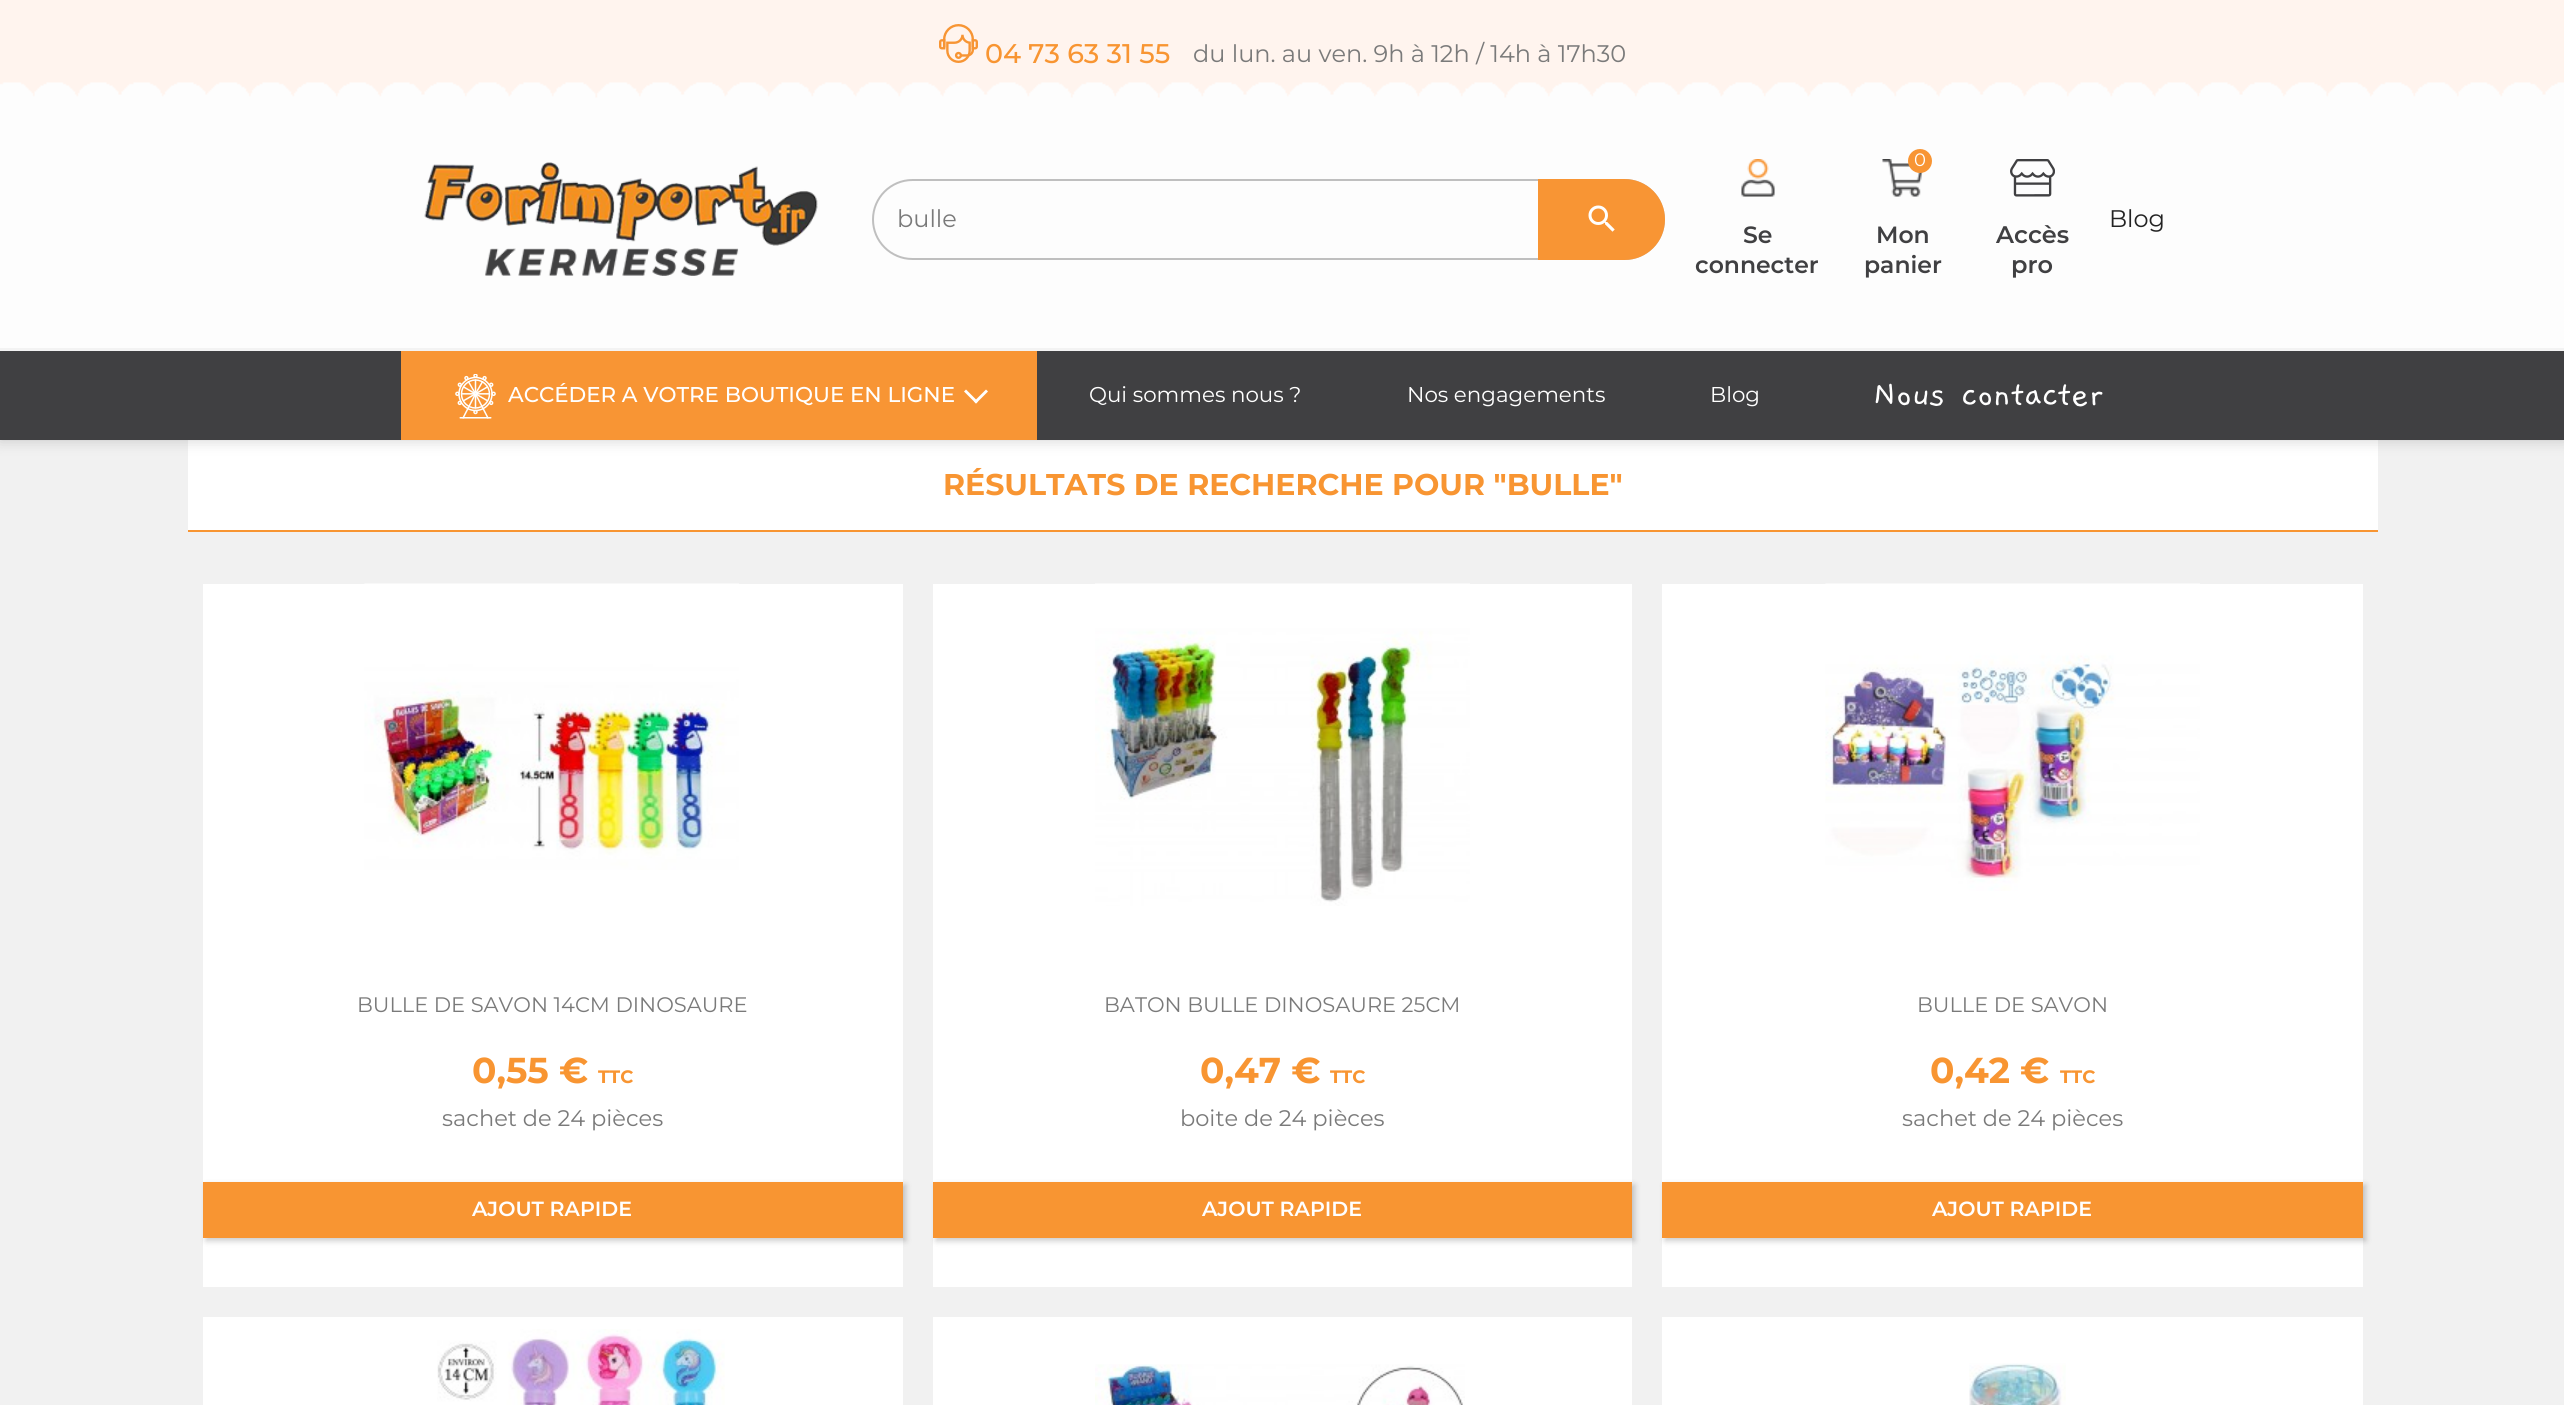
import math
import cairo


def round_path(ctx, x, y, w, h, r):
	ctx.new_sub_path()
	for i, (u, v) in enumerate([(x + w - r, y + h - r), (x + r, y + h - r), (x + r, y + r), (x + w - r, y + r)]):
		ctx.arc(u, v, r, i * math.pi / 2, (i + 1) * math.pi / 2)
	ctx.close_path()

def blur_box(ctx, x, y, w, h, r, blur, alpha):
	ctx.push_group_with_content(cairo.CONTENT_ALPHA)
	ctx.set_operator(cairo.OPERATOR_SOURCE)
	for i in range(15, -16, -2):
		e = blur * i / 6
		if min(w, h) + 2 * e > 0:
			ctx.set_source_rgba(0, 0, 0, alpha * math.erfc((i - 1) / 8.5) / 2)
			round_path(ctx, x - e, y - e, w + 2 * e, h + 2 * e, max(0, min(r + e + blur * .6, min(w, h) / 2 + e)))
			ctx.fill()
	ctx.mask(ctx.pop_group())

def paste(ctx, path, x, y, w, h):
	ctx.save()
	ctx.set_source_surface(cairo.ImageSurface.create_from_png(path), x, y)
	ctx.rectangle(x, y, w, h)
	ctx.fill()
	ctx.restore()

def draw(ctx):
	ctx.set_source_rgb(0.945, 0.945, 0.945)
	ctx.paint()
	ctx.set_source_rgb(1, 1, 1)
	ctx.rectangle(188, 440, 2190, 90)
	ctx.fill()
	ctx.set_source_rgb(0, 0, 0)
	blur_box(ctx, 0, 0, 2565, 440, 0, 7.5, 0.19)
	ctx.set_source_rgb(0.992, 0.992, 0.992)
	ctx.rectangle(0, 105, 2564, 243)
	ctx.fill()
	ctx.set_source_rgb(1, 0.957, 0.933)
	ctx.rectangle(0, 0, 2564, 98)
	ctx.fill()
	paste(ctx, 'media/1.png', 939, 24, 39, 39)
	ctx.select_font_face('Montserrat Medium')
	ctx.set_font_size(27)
	ctx.set_source_rgb(0.969, 0.584, 0.196)
	ctx.move_to(985, 63)
	ctx.show_text('04 73 63 31 55')
	ctx.select_font_face('Montserrat')
	ctx.set_font_size(24)
	ctx.set_source_rgb(0.478, 0.478, 0.478)
	ctx.move_to(1193, 62)
	ctx.show_text('du lun. au ven. 9h à 12h / 14h à 17h30')
	paste(ctx, 'media/2.png', 0, 82, 2564, 23)
	paste(ctx, 'media/3.png', 424, 162, 394, 114)
	round_path(ctx, 873, 180, 791, 79, 39.5)
	ctx.set_source_rgb(0.749, 0.749, 0.749)
	ctx.stroke()
	ctx.set_source_rgb(0.478, 0.478, 0.478)
	ctx.move_to(897, 227)
	ctx.show_text('bulle')
	ctx.set_source_rgb(0.969, 0.584, 0.204)
	ctx.new_path()
	ctx.move_to(1538, 179)
	ctx.line_to(1624.5, 179)
	ctx.curve_to(1647, 179, 1665, 197, 1665, 219.5)
	ctx.curve_to(1665, 242, 1647, 260, 1624.5, 260)
	ctx.line_to(1538, 260)
	ctx.close_path()
	ctx.fill()
	paste(ctx, 'media/4.png', 1588, 205, 27, 27)
	paste(ctx, 'media/5.png', 1882, 159, 41, 38)
	ctx.arc(1920, 161, 12, 0, 2 * math.pi)
	ctx.fill()
	ctx.set_font_size(18)
	ctx.set_source_rgb(1, 1, 1)
	ctx.move_to(1914, 166)
	ctx.show_text('0')
	ctx.select_font_face('Montserrat SemiBold')
	ctx.set_font_size(23.5)
	ctx.set_source_rgb(0.251, 0.251, 0.259)
	ctx.move_to(1876, 243)
	ctx.show_text('Mon')
	ctx.move_to(1864, 273)
	ctx.show_text('panier')
	ctx.select_font_face('Montserrat')
	ctx.set_font_size(24)
	ctx.set_source_rgb(0.137, 0.137, 0.137)
	ctx.move_to(2109, 227)
	ctx.show_text('Blog')
	paste(ctx, 'media/6.png', 1741, 159, 34, 38)
	ctx.select_font_face('Montserrat SemiBold')
	ctx.set_font_size(23.5)
	ctx.set_source_rgb(0.251, 0.251, 0.259)
	ctx.move_to(1743, 243)
	ctx.show_text('Se')
	ctx.move_to(1695, 273)
	ctx.show_text('connecter')
	paste(ctx, 'media/7.png', 2010, 159, 45, 38)
	ctx.set_font_size(24)
	ctx.move_to(1996, 243)
	ctx.show_text('Accès')
	ctx.move_to(2011, 273)
	ctx.show_text('pro')
	ctx.rectangle(0, 351, 2564, 89)
	ctx.fill()
	ctx.set_source_rgb(0.953, 0.953, 0.953)
	ctx.rectangle(0, 348, 2564, 3)
	ctx.fill()
	ctx.set_source_rgb(0.969, 0.584, 0.204)
	ctx.rectangle(401, 351, 636, 89)
	ctx.fill()
	paste(ctx, 'media/8.png', 455, 374, 41, 45)
	ctx.select_font_face('Montserrat Medium')
	ctx.set_font_size(21.4)
	ctx.set_source_rgb(1, 1, 1)
	ctx.move_to(508, 402)
	ctx.show_text('ACCÉDER A VOTRE BOUTIQUE EN LIGNE')
	ctx.new_path()
	ctx.move_to(986, 389.5)
	ctx.line_to(988, 391.5)
	ctx.line_to(976, 403.5)
	ctx.line_to(974, 401.5)
	ctx.close_path()
	ctx.fill()
	ctx.new_path()
	ctx.move_to(966, 389.5)
	ctx.line_to(978, 401.5)
	ctx.line_to(976, 403.5)
	ctx.line_to(964, 391.5)
	ctx.close_path()
	ctx.fill()
	ctx.select_font_face('Montserrat')
	for x, y, s in [
		(1089, 402, 'Qui sommes nous ?'),
		(1407, 402, 'Nos engagements'),
		(1710, 402, 'Blog'),
	]:
		ctx.move_to(x, y)
		ctx.show_text(s)
	ctx.select_font_face('Gaegu')
	ctx.set_font_size(37.75)
	ctx.move_to(1873, 405)
	ctx.show_text('Nous contacter')
	ctx.set_source_rgb(0.969, 0.584, 0.196)
	ctx.rectangle(188, 530, 2190, 2)
	ctx.fill()
	ctx.select_font_face('Montserrat', cairo.FONT_SLANT_NORMAL, cairo.FONT_WEIGHT_BOLD)
	ctx.set_font_size(30)
	ctx.move_to(943, 495)
	ctx.show_text('RÉSULTATS DE RECHERCHE POUR "BULLE"')
	ctx.set_source_rgb(1, 1, 1)
	ctx.rectangle(203, 584, 700, 703)
	ctx.fill()
	paste(ctx, 'media/9.png', 364, 583, 375, 287)
	ctx.select_font_face('Montserrat')
	ctx.set_font_size(21)
	ctx.set_source_rgb(0.478, 0.478, 0.478)
	ctx.move_to(357, 1012)
	ctx.show_text('BULLE DE SAVON 14CM DINOSAURE')
	ctx.select_font_face('Montserrat', cairo.FONT_SLANT_NORMAL, cairo.FONT_WEIGHT_BOLD)
	ctx.set_font_size(36)
	ctx.set_source_rgb(0.969, 0.584, 0.196)
	ctx.move_to(472, 1083)
	ctx.show_text('0,55 €')
	ctx.set_font_size(18)
	ctx.move_to(598, 1083)
	ctx.show_text('TTC')
	ctx.select_font_face('Montserrat')
	ctx.set_font_size(22.5)
	ctx.set_source_rgb(0.478, 0.478, 0.478)
	ctx.move_to(442, 1126)
	ctx.show_text('sachet de 24 pièces')
	ctx.set_source_rgb(0, 0, 0)
	blur_box(ctx, 206, 1185, 700, 56, 0, 3, 0.2)
	ctx.set_source_rgb(0.969, 0.584, 0.196)
	ctx.rectangle(203, 1182, 700, 56)
	ctx.fill()
	ctx.select_font_face('Montserrat SemiBold')
	ctx.set_font_size(20.5)
	ctx.set_source_rgb(1, 1, 1)
	ctx.move_to(472, 1216)
	ctx.show_text('AJOUT RAPIDE')
	ctx.rectangle(933, 584, 699, 703)
	ctx.fill()
	paste(ctx, 'media/10.png', 1095, 583, 375, 323)
	ctx.select_font_face('Montserrat')
	ctx.set_font_size(21)
	ctx.set_source_rgb(0.478, 0.478, 0.478)
	ctx.move_to(1104, 1012)
	ctx.show_text('BATON BULLE DINOSAURE 25CM')
	ctx.select_font_face('Montserrat', cairo.FONT_SLANT_NORMAL, cairo.FONT_WEIGHT_BOLD)
	ctx.set_font_size(36)
	ctx.set_source_rgb(0.969, 0.584, 0.196)
	ctx.move_to(1200, 1083)
	ctx.show_text('0,47 €')
	ctx.set_font_size(18)
	ctx.move_to(1330, 1083)
	ctx.show_text('TTC')
	ctx.select_font_face('Montserrat')
	ctx.set_font_size(22.5)
	ctx.set_source_rgb(0.478, 0.478, 0.478)
	ctx.move_to(1180, 1126)
	ctx.show_text('boite de 24 pièces')
	ctx.set_source_rgb(0, 0, 0)
	blur_box(ctx, 936, 1185, 699, 56, 0, 3, 0.2)
	ctx.set_source_rgb(0.969, 0.584, 0.196)
	ctx.rectangle(933, 1182, 699, 56)
	ctx.fill()
	ctx.select_font_face('Montserrat SemiBold')
	ctx.set_font_size(20.5)
	ctx.set_source_rgb(1, 1, 1)
	ctx.move_to(1202, 1216)
	ctx.show_text('AJOUT RAPIDE')
	ctx.new_path()
	ctx.move_to(1271.5, 1199)
	ctx.curve_to(1277.5, 1193.5, 1287.5, 1193.5, 1293.5, 1199)
	ctx.set_source_rgb(0.969, 0.584, 0.196)
	ctx.set_line_width(7.5)
	ctx.stroke()
	ctx.set_source_rgb(1, 1, 1)
	ctx.rectangle(1662, 584, 701, 703)
	ctx.fill()
	paste(ctx, 'media/11.png', 1825, 583, 375, 308)
	ctx.select_font_face('Montserrat')
	ctx.set_font_size(21)
	ctx.set_source_rgb(0.478, 0.478, 0.478)
	ctx.move_to(1917, 1012)
	ctx.show_text('BULLE DE SAVON')
	ctx.select_font_face('Montserrat', cairo.FONT_SLANT_NORMAL, cairo.FONT_WEIGHT_BOLD)
	ctx.set_font_size(36)
	ctx.set_source_rgb(0.969, 0.584, 0.196)
	ctx.move_to(1930, 1083)
	ctx.show_text('0,42 €')
	ctx.set_font_size(18)
	ctx.move_to(2060, 1083)
	ctx.show_text('TTC')
	ctx.select_font_face('Montserrat')
	ctx.set_font_size(22.5)
	ctx.set_source_rgb(0.478, 0.478, 0.478)
	ctx.move_to(1902, 1126)
	ctx.show_text('sachet de 24 pièces')
	ctx.set_source_rgb(0, 0, 0)
	blur_box(ctx, 1665, 1185, 701, 56, 0, 3, 0.2)
	ctx.set_source_rgb(0.969, 0.584, 0.196)
	ctx.rectangle(1662, 1182, 701, 56)
	ctx.fill()
	ctx.select_font_face('Montserrat SemiBold')
	ctx.set_font_size(20.5)
	ctx.set_source_rgb(1, 1, 1)
	ctx.move_to(1932, 1216)
	ctx.show_text('AJOUT RAPIDE')
	ctx.rectangle(203, 1317, 700, 88)
	ctx.fill()
	paste(ctx, 'media/12.png', 437, 1329, 288, 76)
	ctx.rectangle(933, 1317, 699, 88)
	ctx.fill()
	paste(ctx, 'media/13.png', 1095, 1364, 370, 41)
	ctx.rectangle(1662, 1317, 701, 88)
	ctx.fill()
	paste(ctx, 'media/14.png', 1969, 1363, 97, 42)


surface = cairo.ImageSurface(cairo.FORMAT_RGB24, 2564, 1405)
ctx = cairo.Context(surface)
options = cairo.FontOptions()
options.set_hint_metrics(cairo.HINT_METRICS_OFF)
options.set_hint_style(cairo.HINT_STYLE_NONE)
ctx.set_font_options(options)
ctx.set_miter_limit(4)
draw(ctx)
surface.write_to_png('image.png')
